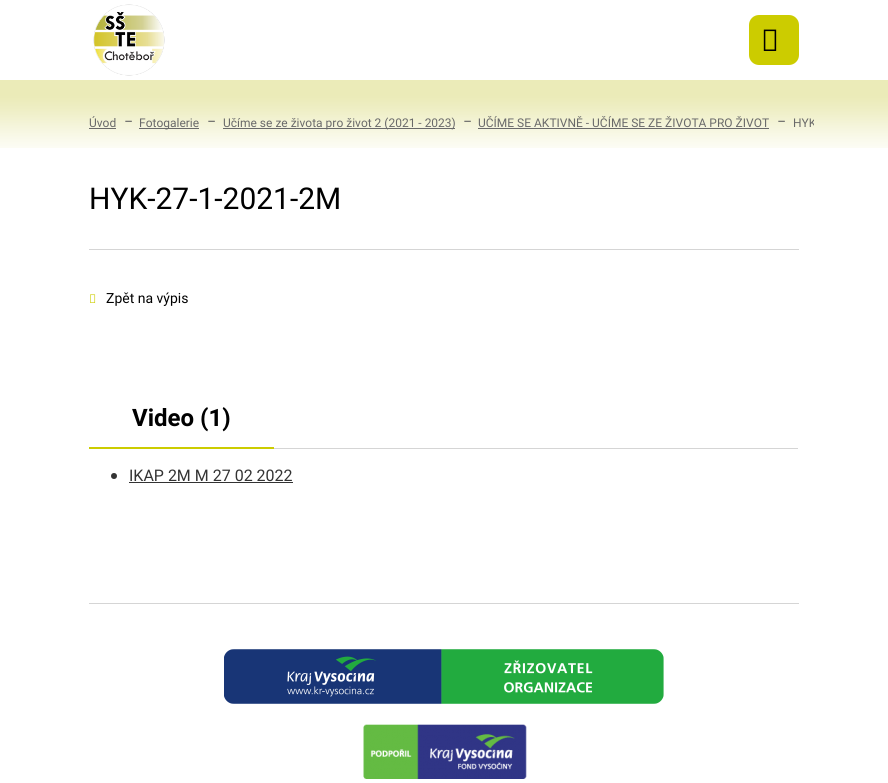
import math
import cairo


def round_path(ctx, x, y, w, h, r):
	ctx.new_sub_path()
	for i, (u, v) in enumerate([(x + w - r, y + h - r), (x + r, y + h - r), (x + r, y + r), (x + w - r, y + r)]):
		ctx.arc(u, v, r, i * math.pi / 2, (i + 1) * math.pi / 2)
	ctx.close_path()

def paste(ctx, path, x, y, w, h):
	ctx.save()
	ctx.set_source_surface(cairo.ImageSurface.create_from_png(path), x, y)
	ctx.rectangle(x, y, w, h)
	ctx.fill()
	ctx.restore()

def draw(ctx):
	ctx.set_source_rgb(1, 1, 1)
	ctx.paint()
	paste(ctx, 'media/1.png', 93, 4, 72, 72)
	ctx.set_source_rgb(0.8, 0.8, 0)
	round_path(ctx, 749, 15, 50, 50, 10)
	ctx.fill()
	paste(ctx, 'media/2.png', 763, 29, 14, 22)
	paste(ctx, 'media/3.png', 0, 80, 888, 68)
	ctx.select_font_face('Roboto')
	ctx.set_font_size(12)
	ctx.set_source_rgb(0.412, 0.412, 0.412)
	ctx.move_to(89, 127)
	ctx.show_text('Úvod')
	ctx.rectangle(89, 128, 27, 1)
	ctx.fill()
	ctx.set_font_size(16)
	ctx.move_to(124, 127)
	ctx.show_text('−')
	ctx.rectangle(139, 128, 60, 1)
	ctx.fill()
	ctx.set_font_size(12)
	ctx.move_to(139, 127)
	ctx.show_text('Fotogalerie')
	ctx.set_font_size(16)
	ctx.move_to(207, 127)
	ctx.show_text('−')
	ctx.rectangle(223, 128, 232, 1)
	ctx.fill()
	ctx.set_font_size(12)
	ctx.move_to(223, 127)
	ctx.show_text('Učíme se ze života pro život 2 (2021 - 2023)')
	ctx.set_font_size(16)
	ctx.move_to(463, 127)
	ctx.show_text('−')
	ctx.set_font_size(12)
	ctx.move_to(478, 127)
	ctx.show_text('UČÍME SE AKTIVNĚ - UČÍME SE ZE ŽIVOTA PRO ŽIVOT')
	ctx.rectangle(478, 128, 291, 1)
	ctx.fill()
	ctx.set_font_size(16)
	ctx.move_to(777, 127)
	ctx.show_text('−')
	ctx.save()
	ctx.rectangle(74, 110, 740, 33)
	ctx.clip()
	ctx.set_font_size(12)
	ctx.move_to(793, 127)
	ctx.show_text('HYK')
	ctx.restore()
	ctx.set_font_size(30)
	ctx.set_source_rgb(0, 0, 0)
	ctx.move_to(89, 209)
	ctx.show_text('HYK-27-1-2021-2M')
	ctx.set_source_rgb(0.835, 0.835, 0.835)
	ctx.rectangle(89, 249, 710, 1)
	ctx.fill()
	paste(ctx, 'media/4.png', 90, 294, 6, 9)
	ctx.set_font_size(14)
	ctx.set_source_rgb(0, 0, 0)
	ctx.move_to(106, 303)
	ctx.show_text('Zpět na výpis')
	ctx.set_source_rgb(0.835, 0.835, 0.835)
	ctx.rectangle(274, 448, 524, 1)
	ctx.fill()
	ctx.set_source_rgb(0.8, 0.8, 0)
	ctx.rectangle(89, 447, 185, 2)
	ctx.fill()
	ctx.select_font_face('Roboto', cairo.FONT_SLANT_NORMAL, cairo.FONT_WEIGHT_BOLD)
	ctx.set_font_size(24)
	ctx.set_source_rgb(0, 0, 0)
	ctx.move_to(132, 426)
	ctx.show_text('Video (1)')
	ctx.set_source_rgb(0.2, 0.2, 0.2)
	ctx.new_path()
	ctx.arc(114, 476, 3, 0, 2 * math.pi)
	ctx.fill()
	ctx.select_font_face('Roboto')
	ctx.set_font_size(16)
	ctx.move_to(129, 481)
	ctx.show_text('IKAP 2M M 27 02 2022')
	ctx.rectangle(129, 482, 164, 1)
	ctx.fill()
	ctx.set_source_rgb(0.835, 0.835, 0.835)
	ctx.rectangle(89, 603, 710, 1)
	ctx.fill()
	paste(ctx, 'media/5.png', 224, 649, 440, 55)
	paste(ctx, 'media/6.png', 363, 724, 164, 55)


surface = cairo.ImageSurface(cairo.FORMAT_RGB24, 888, 783)
ctx = cairo.Context(surface)
options = cairo.FontOptions()
options.set_hint_metrics(cairo.HINT_METRICS_OFF)
options.set_hint_style(cairo.HINT_STYLE_NONE)
ctx.set_font_options(options)
ctx.set_miter_limit(4)
draw(ctx)
surface.write_to_png('image.png')
